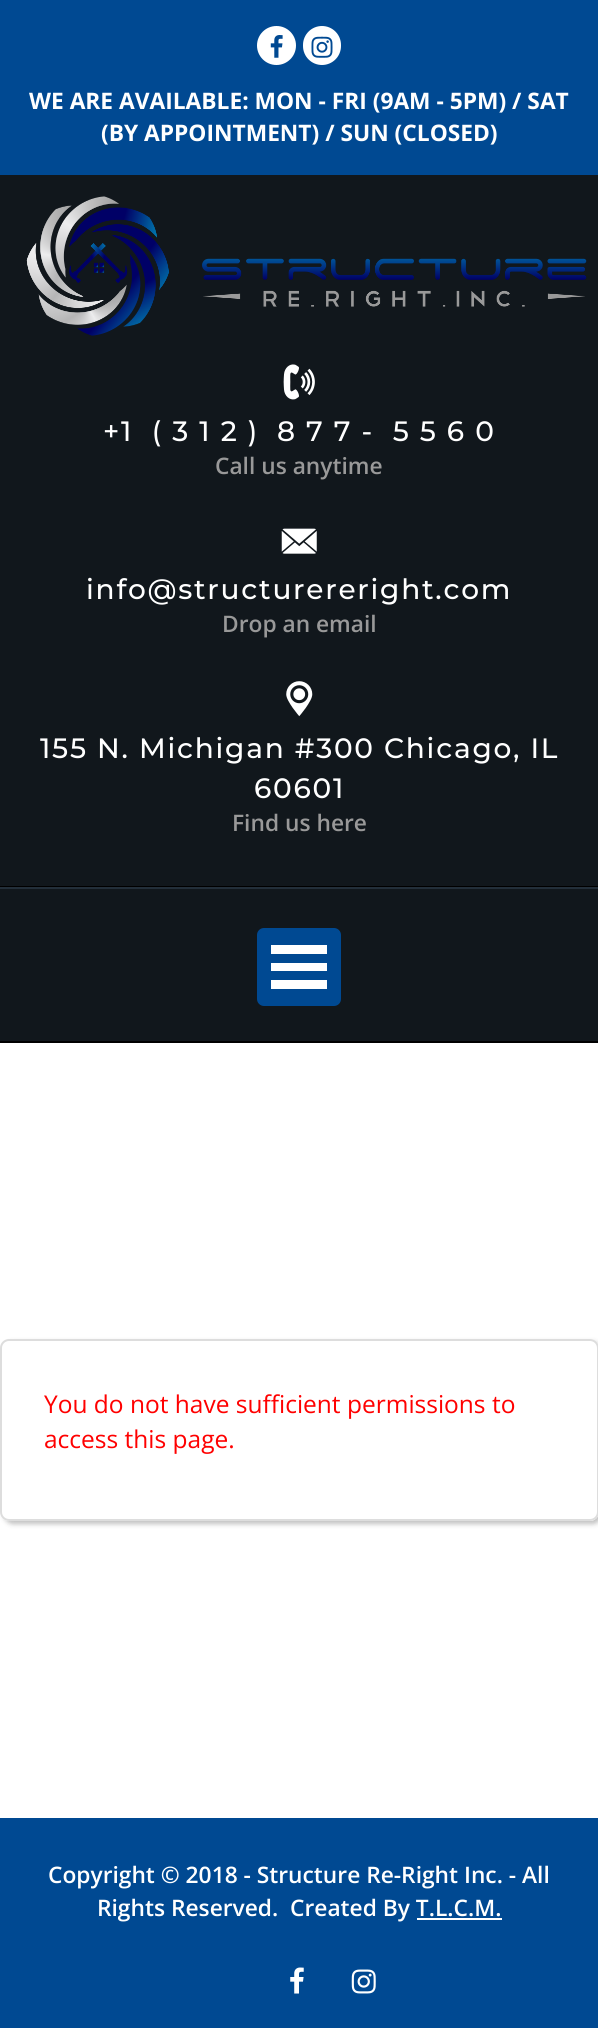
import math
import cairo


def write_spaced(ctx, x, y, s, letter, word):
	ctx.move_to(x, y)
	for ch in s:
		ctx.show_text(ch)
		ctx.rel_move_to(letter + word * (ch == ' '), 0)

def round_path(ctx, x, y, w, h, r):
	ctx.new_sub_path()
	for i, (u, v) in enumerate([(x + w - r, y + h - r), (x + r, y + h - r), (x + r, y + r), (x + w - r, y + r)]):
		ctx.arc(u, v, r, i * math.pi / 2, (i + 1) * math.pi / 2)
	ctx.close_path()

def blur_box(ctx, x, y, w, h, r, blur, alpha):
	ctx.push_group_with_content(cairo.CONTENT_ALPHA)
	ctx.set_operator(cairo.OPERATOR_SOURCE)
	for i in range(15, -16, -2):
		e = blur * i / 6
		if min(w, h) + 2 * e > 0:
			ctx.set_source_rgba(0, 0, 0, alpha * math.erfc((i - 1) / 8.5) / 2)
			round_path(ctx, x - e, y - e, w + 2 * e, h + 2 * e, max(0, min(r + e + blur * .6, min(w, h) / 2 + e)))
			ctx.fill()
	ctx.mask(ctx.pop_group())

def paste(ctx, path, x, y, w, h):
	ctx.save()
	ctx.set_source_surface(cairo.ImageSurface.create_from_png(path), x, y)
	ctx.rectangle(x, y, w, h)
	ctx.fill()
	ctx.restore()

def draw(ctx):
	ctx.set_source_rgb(1, 1, 1)
	ctx.paint()
	ctx.set_source_rgb(0, 0.286, 0.573)
	ctx.rectangle(0, 0, 598, 175)
	ctx.fill()
	ctx.set_source_rgb(1, 1, 1)
	ctx.arc(276.5, 45.5, 19.5, 0, 2 * math.pi)
	ctx.fill()
	paste(ctx, 'media/1.png', 270, 35, 13, 23)
	round_path(ctx, 303, 26, 38, 39, 19)
	ctx.fill()
	paste(ctx, 'media/2.png', 311, 36, 22, 22)
	ctx.select_font_face('Open Sans', cairo.FONT_SLANT_NORMAL, cairo.FONT_WEIGHT_BOLD)
	ctx.set_font_size(22.75)
	ctx.move_to(29, 109)
	ctx.show_text('WE ARE AVAILABLE: MON - FRI (9AM - 5PM) / SAT')
	ctx.move_to(101, 141)
	ctx.show_text('(BY APPOINTMENT) / SUN (CLOSED)')
	ctx.set_source_rgb(0.067, 0.09, 0.11)
	ctx.rectangle(0, 175, 598, 711)
	ctx.fill()
	paste(ctx, 'media/3.png', 26, 196, 561, 140)
	paste(ctx, 'media/4.png', 283, 364, 32, 36)
	ctx.select_font_face('Montserrat Medium')
	ctx.set_font_size(28)
	ctx.set_source_rgb(1, 1, 1)
	write_spaced(ctx, 103, 441, '+1  ( 3 1 2 )', 1.75, 0)
	write_spaced(ctx, 277, 441, '8 7 7 -  5 5 6 0', 1.75, 0)
	ctx.select_font_face('Open Sans SemiBold')
	ctx.set_font_size(22.75)
	ctx.set_source_rgb(0.6, 0.6, 0.6)
	ctx.move_to(215, 474)
	ctx.show_text('Call us anytime')
	paste(ctx, 'media/5.png', 281, 528, 36, 26)
	ctx.select_font_face('Montserrat Medium')
	ctx.set_font_size(28)
	ctx.set_source_rgb(1, 1, 1)
	write_spaced(ctx, 86, 599, 'info@structurereright.com', 1.75, 0)
	ctx.select_font_face('Open Sans SemiBold')
	ctx.set_font_size(22.75)
	ctx.set_source_rgb(0.6, 0.6, 0.6)
	ctx.move_to(222, 632)
	ctx.show_text('Drop an email')
	paste(ctx, 'media/6.png', 286, 681, 27, 36)
	ctx.select_font_face('Montserrat Medium')
	ctx.set_font_size(28)
	ctx.set_source_rgb(1, 1, 1)
	write_spaced(ctx, 40, 758, '155 N. Michigan #300 Chicago, IL', 1.75, 0)
	write_spaced(ctx, 254, 798, '60601', 1.75, 0)
	ctx.select_font_face('Open Sans SemiBold')
	ctx.set_font_size(22.75)
	ctx.set_source_rgb(0.6, 0.6, 0.6)
	ctx.move_to(232, 831)
	ctx.show_text('Find us here')
	ctx.rectangle(-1, 887, 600, 155)
	ctx.set_source_rgb(0, 0, 0)
	ctx.stroke()
	ctx.set_source_rgb(0.067, 0.09, 0.11)
	ctx.rectangle(0, 889, 598, 152)
	ctx.fill()
	ctx.set_source_rgb(0.137, 0.184, 0.227)
	ctx.rectangle(0, 887, 598, 2)
	ctx.fill()
	ctx.set_source_rgb(0, 0.286, 0.573)
	round_path(ctx, 257, 928, 84, 78, 7)
	ctx.fill()
	ctx.set_source_rgb(1, 1, 1)
	ctx.rectangle(271, 980, 56, 9)
	ctx.rectangle(271, 963, 56, 8)
	ctx.rectangle(271, 945, 56, 9)
	ctx.fill()
	ctx.save()
	ctx.set_fill_rule(cairo.FILL_RULE_EVEN_ODD)
	ctx.new_path()
	ctx.move_to(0, 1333)
	ctx.line_to(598, 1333)
	ctx.line_to(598, 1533)
	ctx.line_to(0, 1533)
	ctx.close_path()
	ctx.move_to(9, 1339)
	ctx.line_to(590, 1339)
	ctx.curve_to(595, 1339, 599, 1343, 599, 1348)
	ctx.line_to(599, 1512)
	ctx.curve_to(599, 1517, 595, 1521, 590, 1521)
	ctx.line_to(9, 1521)
	ctx.curve_to(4, 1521, 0, 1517, 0, 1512)
	ctx.line_to(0, 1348)
	ctx.curve_to(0, 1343, 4, 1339, 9, 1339)
	ctx.close_path()
	ctx.clip()
	ctx.set_source_rgb(0, 0, 0)
	blur_box(ctx, 4, 1342, 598, 182, 9, 2.5, 0.25)
	ctx.restore()
	round_path(ctx, 1, 1340, 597, 180, 8)
	ctx.set_source_rgb(0.867, 0.867, 0.867)
	ctx.stroke()
	ctx.select_font_face('Open Sans')
	ctx.set_font_size(24.5)
	ctx.set_source_rgb(1, 0, 0)
	ctx.move_to(44, 1413)
	ctx.show_text('You do not have sufficient permissions to')
	ctx.move_to(44, 1448)
	ctx.show_text('access this page.')
	ctx.set_source_rgb(0, 0.286, 0.573)
	ctx.rectangle(0, 1818, 598, 210)
	ctx.fill()
	ctx.select_font_face('Open Sans SemiBold')
	ctx.set_font_size(22.75)
	ctx.set_source_rgb(1, 1, 1)
	ctx.move_to(48, 1883)
	ctx.show_text('Copyright © 2018 - Structure Re-Right Inc. - All')
	ctx.move_to(97, 1916)
	ctx.show_text('Rights Reserved.  Created By T.L.C.M.')
	ctx.rectangle(417, 1918, 85, 2)
	ctx.fill()
	paste(ctx, 'media/7.png', 290, 1967, 14, 27)
	paste(ctx, 'media/8.png', 351, 1969, 25, 25)


surface = cairo.ImageSurface(cairo.FORMAT_RGB24, 598, 2041)
ctx = cairo.Context(surface)
options = cairo.FontOptions()
options.set_hint_metrics(cairo.HINT_METRICS_OFF)
options.set_hint_style(cairo.HINT_STYLE_NONE)
ctx.set_font_options(options)
ctx.set_miter_limit(4)
draw(ctx)
surface.write_to_png('image.png')
